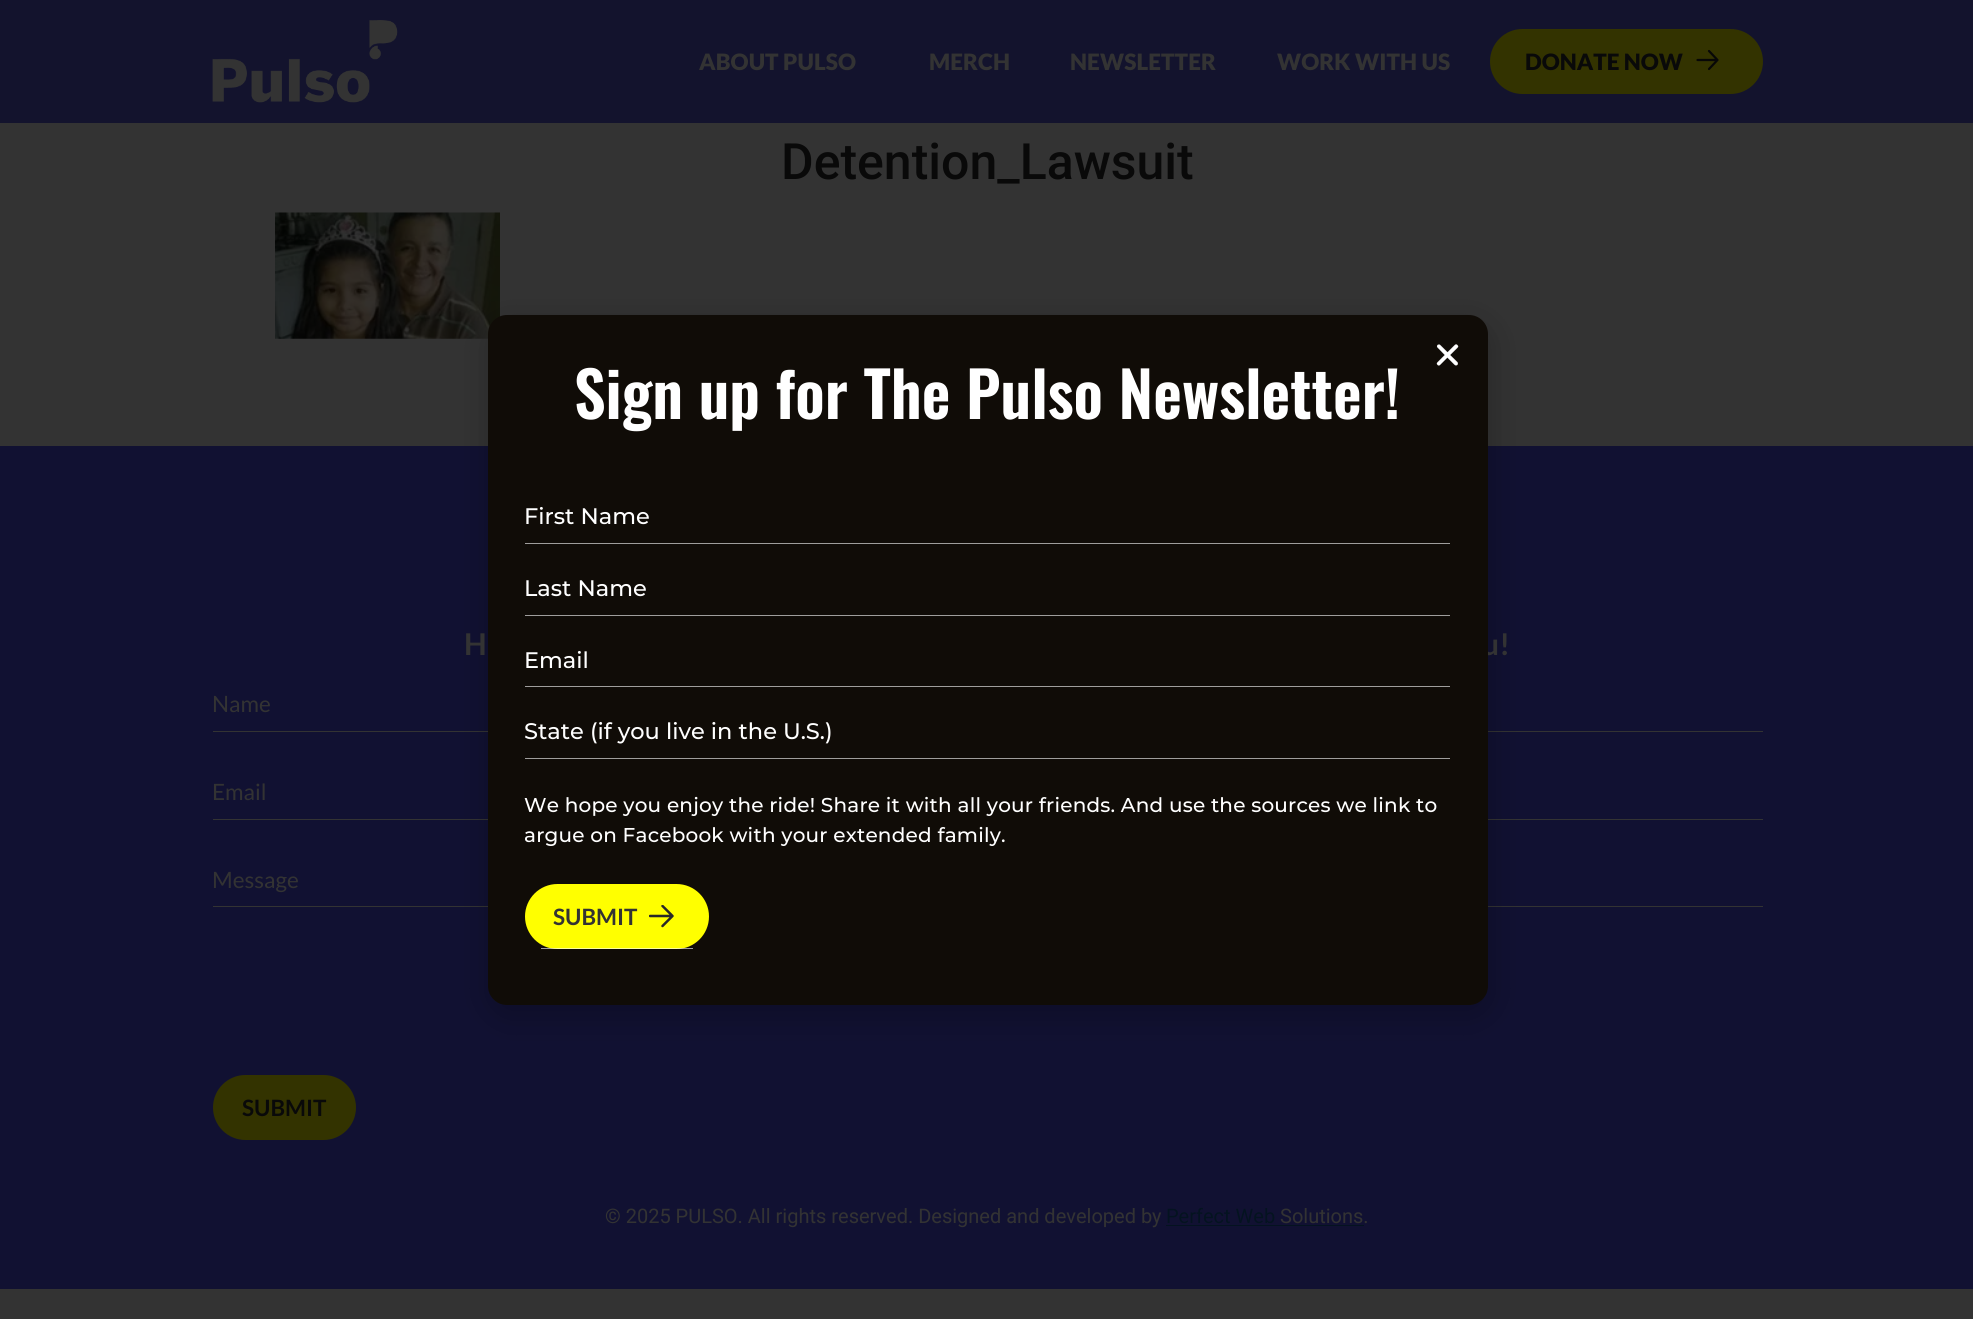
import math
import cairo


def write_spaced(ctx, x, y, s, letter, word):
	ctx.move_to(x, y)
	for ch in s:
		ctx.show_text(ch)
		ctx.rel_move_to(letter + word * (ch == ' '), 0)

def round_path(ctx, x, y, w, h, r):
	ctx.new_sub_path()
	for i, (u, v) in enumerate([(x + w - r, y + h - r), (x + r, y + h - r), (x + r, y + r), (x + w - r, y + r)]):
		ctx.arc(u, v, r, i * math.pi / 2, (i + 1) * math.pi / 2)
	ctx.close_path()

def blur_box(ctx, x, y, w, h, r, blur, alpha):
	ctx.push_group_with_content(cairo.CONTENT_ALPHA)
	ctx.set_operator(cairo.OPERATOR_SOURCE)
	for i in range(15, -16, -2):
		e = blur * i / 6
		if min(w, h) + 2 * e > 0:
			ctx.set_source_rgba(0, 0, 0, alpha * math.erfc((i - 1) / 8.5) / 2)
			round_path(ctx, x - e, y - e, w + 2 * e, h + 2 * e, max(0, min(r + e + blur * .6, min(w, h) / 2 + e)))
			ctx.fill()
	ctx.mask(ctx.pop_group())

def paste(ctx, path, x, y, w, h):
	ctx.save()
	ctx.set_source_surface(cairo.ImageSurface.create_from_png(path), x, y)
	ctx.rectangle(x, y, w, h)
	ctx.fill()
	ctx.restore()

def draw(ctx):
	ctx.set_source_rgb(0.2, 0.2, 0.2)
	ctx.paint()
	ctx.set_source_rgb(0.075, 0.075, 0.176)
	ctx.rectangle(0, 0, 1973, 123)
	ctx.fill()
	paste(ctx, 'media/1.png', 212, 20, 186, 83)
	ctx.select_font_face('Lato Black')
	ctx.set_font_size(22.5)
	ctx.set_source_rgb(0.2, 0.2, 0.2)
	for x, y, s in [
		(699, 70, 'ABOUT PULSO'),
		(929, 70, 'MERCH'),
		(1070, 70, 'NEWSLETTER'),
		(1277, 70, 'WORK WITH US'),
	]:
		write_spaced(ctx, x, y, s, 0.1, 0)
	ctx.set_source_rgb(0.2, 0.2, 0)
	round_path(ctx, 1490, 29, 273, 65, 32.5)
	ctx.fill()
	ctx.set_source_rgb(0.039, 0.039, 0.039)
	ctx.move_to(1525, 70)
	ctx.show_text('DONATE NOW')
	ctx.new_path()
	ctx.move_to(1709, 69)
	ctx.line_to(1717.5, 60)
	ctx.move_to(1717.5, 60)
	ctx.line_to(1709, 51)
	ctx.move_to(1717.5, 60)
	ctx.line_to(1697.5, 60)
	ctx.set_source_rgb(0.031, 0.031, 0.031)
	ctx.set_line_width(2.2)
	ctx.set_line_cap(cairo.LINE_CAP_ROUND)
	ctx.set_line_join(cairo.LINE_JOIN_ROUND)
	ctx.stroke()
	ctx.select_font_face('Roboto Medium')
	ctx.set_font_size(50)
	ctx.set_source_rgb(0.039, 0.039, 0.039)
	ctx.move_to(781, 179)
	ctx.show_text('Detention_Lawsuit')
	paste(ctx, 'media/2.png', 275, 212, 225, 127)
	ctx.set_source_rgb(0.067, 0.067, 0.196)
	ctx.rectangle(0, 446, 1973, 843)
	ctx.fill()
	ctx.set_source_rgb(0.2, 0.2, 0.2)
	ctx.rectangle(213, 731, 1550, 1)
	ctx.rectangle(213, 819, 1550, 1)
	ctx.rectangle(213, 906, 1550, 1)
	ctx.fill()
	ctx.set_source_rgb(0, 0, 0)
	blur_box(ctx, 486, 321, 1008, 698, 23, 14.5, 0.2)
	ctx.select_font_face('Lato', cairo.FONT_SLANT_NORMAL, cairo.FONT_WEIGHT_BOLD)
	ctx.set_font_size(30)
	ctx.set_source_rgb(0.2, 0.2, 0.2)
	write_spaced(ctx, 1482, 655, 'u!', 0.1, 0)
	ctx.set_source_rgb(0.063, 0.047, 0.031)
	round_path(ctx, 488, 315, 1000, 690, 19)
	ctx.fill()
	paste(ctx, 'media/3.png', 1436, 344, 23, 22)
	ctx.select_font_face('Oswald SemiBold')
	ctx.set_font_size(62.5)
	ctx.set_source_rgb(1, 1, 1)
	ctx.move_to(574, 419)
	ctx.show_text('Sign up for The Pulso Newsletter!')
	ctx.set_source_rgb(0.624, 0.62, 0.612)
	ctx.rectangle(525, 543, 925, 1)
	ctx.fill()
	ctx.select_font_face('Montserrat Medium')
	ctx.set_font_size(22.5)
	ctx.set_source_rgb(1, 1, 1)
	ctx.move_to(524, 524)
	ctx.show_text('First Name')
	ctx.set_source_rgb(0.624, 0.62, 0.612)
	ctx.rectangle(525, 615, 925, 1)
	ctx.fill()
	ctx.set_source_rgb(1, 1, 1)
	ctx.move_to(524, 596)
	ctx.show_text('Last Name')
	ctx.set_source_rgb(0.624, 0.62, 0.612)
	ctx.rectangle(525, 686, 925, 1)
	ctx.fill()
	ctx.set_source_rgb(1, 1, 1)
	ctx.move_to(524, 668)
	ctx.show_text('Email')
	ctx.set_source_rgb(0.624, 0.62, 0.612)
	ctx.rectangle(525, 758, 925, 1)
	ctx.fill()
	ctx.set_source_rgb(1, 1, 1)
	ctx.move_to(524, 739)
	ctx.show_text('State (if you live in the U.S.)')
	ctx.set_font_size(20)
	write_spaced(ctx, 524, 812, 'We hope you enjoy the ride! Share it with all your friends. And use the sources we link to', 0.2, 0)
	write_spaced(ctx, 524, 842, 'argue on Facebook with your extended family.', 0.2, 0)
	ctx.set_source_rgb(1, 1, 0)
	round_path(ctx, 525, 884, 184, 65, 32.5)
	ctx.fill()
	ctx.set_source_rgba(1, 1, 1, 0.6)
	ctx.rectangle(541, 948, 152, 1)
	ctx.fill()
	ctx.select_font_face('Lato', cairo.FONT_SLANT_NORMAL, cairo.FONT_WEIGHT_BOLD)
	ctx.set_font_size(22.5)
	ctx.set_source_rgb(0.2, 0.2, 0.2)
	ctx.move_to(553, 925)
	ctx.show_text('SUBMIT')
	ctx.save()
	ctx.rectangle(649, 905, 25, 23)
	ctx.clip()
	ctx.new_path()
	ctx.move_to(662.5, 926)
	ctx.line_to(672.5, 916)
	ctx.move_to(672.5, 916)
	ctx.line_to(662.5, 906)
	ctx.move_to(672.5, 916)
	ctx.line_to(650, 916)
	ctx.set_source_rgb(0.157, 0.157, 0.157)
	ctx.set_line_width(2.5)
	ctx.stroke()
	ctx.restore()
	ctx.set_font_size(30)
	write_spaced(ctx, 464, 655, 'H', 0.1, 0)
	ctx.select_font_face('Lato')
	ctx.set_font_size(22.5)
	for x, y, s in [
		(212, 712, 'Name'),
		(212, 800, 'Email'),
		(212, 888, 'Message'),
	]:
		ctx.move_to(x, y)
		ctx.show_text(s)
	ctx.set_source_rgb(0.2, 0.2, 0)
	round_path(ctx, 213, 1075, 143, 65, 32.5)
	ctx.fill()
	ctx.select_font_face('Lato', cairo.FONT_SLANT_NORMAL, cairo.FONT_WEIGHT_BOLD)
	ctx.set_source_rgb(0.039, 0.039, 0.039)
	ctx.move_to(242, 1116)
	ctx.show_text('SUBMIT')
	ctx.select_font_face('Roboto')
	ctx.set_font_size(20)
	ctx.set_source_rgb(0.2, 0.2, 0.2)
	ctx.move_to(605, 1223)
	ctx.show_text('© 2025 PULSO. All rights reserved. Designed and developed by')
	ctx.set_source_rgb(0.016, 0.075, 0.125)
	ctx.move_to(1166, 1223)
	ctx.show_text('Perfect Web')
	ctx.set_source_rgb(0.2, 0.2, 0.2)
	ctx.move_to(1280, 1223)
	ctx.show_text('Solutions.')
	ctx.set_source_rgb(0.016, 0.075, 0.125)
	ctx.rectangle(1166, 1225, 198, 1)
	ctx.fill()


surface = cairo.ImageSurface(cairo.FORMAT_RGB24, 1973, 1319)
ctx = cairo.Context(surface)
options = cairo.FontOptions()
options.set_hint_metrics(cairo.HINT_METRICS_OFF)
options.set_hint_style(cairo.HINT_STYLE_NONE)
ctx.set_font_options(options)
ctx.set_miter_limit(4)
draw(ctx)
surface.write_to_png('image.png')
